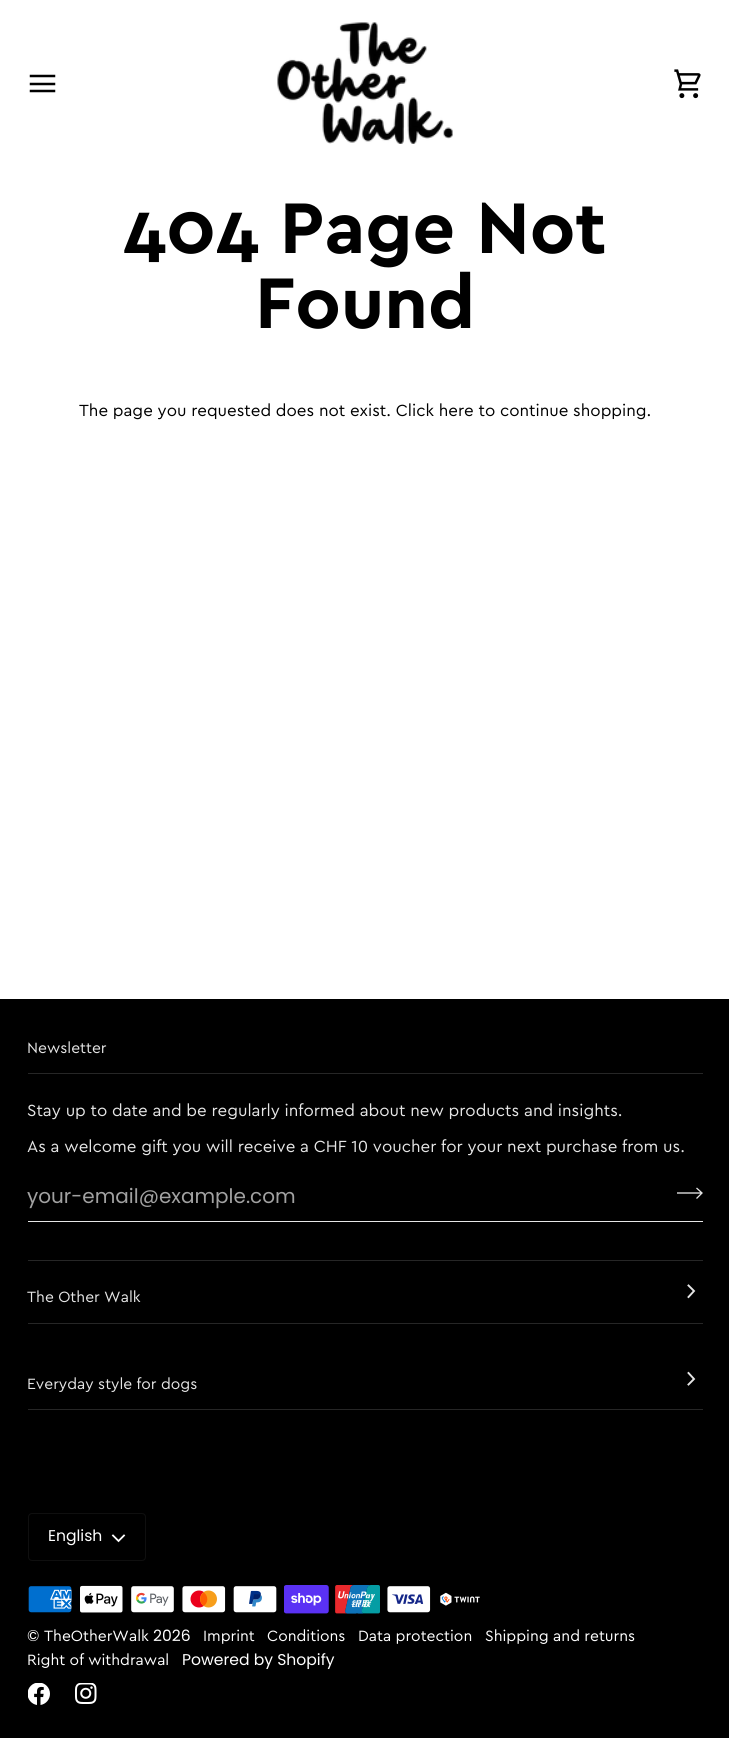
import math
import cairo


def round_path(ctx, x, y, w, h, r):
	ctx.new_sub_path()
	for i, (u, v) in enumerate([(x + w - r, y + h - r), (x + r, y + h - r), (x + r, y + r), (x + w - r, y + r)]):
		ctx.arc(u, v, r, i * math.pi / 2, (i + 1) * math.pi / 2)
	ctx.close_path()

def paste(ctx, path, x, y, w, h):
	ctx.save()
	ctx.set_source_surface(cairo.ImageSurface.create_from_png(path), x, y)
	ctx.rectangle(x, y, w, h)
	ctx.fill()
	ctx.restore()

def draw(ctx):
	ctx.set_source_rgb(1, 1, 1)
	ctx.paint()
	ctx.new_path()
	ctx.move_to(54, 76)
	ctx.line_to(31, 76)
	ctx.move_to(54, 84)
	ctx.line_to(31, 84)
	ctx.move_to(54, 91)
	ctx.line_to(31, 91)
	ctx.set_source_rgb(0, 0, 0)
	ctx.set_line_width(2.5)
	ctx.set_line_cap(cairo.LINE_CAP_SQUARE)
	ctx.stroke()
	paste(ctx, 'media/1.png', 277, 22, 176, 122)
	paste(ctx, 'media/2.png', 674, 69, 27, 30)
	ctx.select_font_face('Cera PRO', cairo.FONT_SLANT_NORMAL, cairo.FONT_WEIGHT_BOLD)
	ctx.set_font_size(75)
	ctx.move_to(123, 253)
	ctx.show_text('404 Page Not')
	ctx.move_to(255, 328)
	ctx.show_text('Found')
	ctx.select_font_face('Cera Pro')
	ctx.set_font_size(16.9)
	ctx.move_to(79, 416)
	ctx.show_text('The page you requested does not exist. Click here to continue shopping.')
	ctx.rectangle(0, 999, 729, 739)
	ctx.fill()
	ctx.set_source_rgb(0.149, 0.149, 0.149)
	ctx.rectangle(28, 1073, 675, 1)
	ctx.fill()
	ctx.set_font_size(15.6)
	ctx.set_source_rgb(0.902, 0.902, 0.902)
	ctx.move_to(27, 1053)
	ctx.show_text('Newsletter')
	ctx.set_font_size(16.9)
	ctx.move_to(27, 1116)
	ctx.show_text('Stay up to date and be regularly informed about new products and insights.')
	ctx.move_to(27, 1152)
	ctx.show_text('As a welcome gift you will receive a CHF 10 voucher for your next purchase from us.')
	ctx.rectangle(28, 1221, 675, 1)
	ctx.fill()
	ctx.select_font_face('Poppins')
	ctx.set_font_size(20)
	ctx.set_source_rgb(0.631, 0.631, 0.631)
	ctx.move_to(27, 1203)
	ctx.show_text('your-email@example.com')
	ctx.new_path()
	ctx.move_to(696.5, 1188)
	ctx.line_to(702, 1193)
	ctx.line_to(696.5, 1198.5)
	ctx.move_to(677, 1193)
	ctx.line_to(702, 1193)
	ctx.set_source_rgb(0.902, 0.902, 0.902)
	ctx.set_line_width(1.3)
	ctx.set_line_cap(cairo.LINE_CAP_BUTT)
	ctx.stroke()
	ctx.set_source_rgb(0.149, 0.149, 0.149)
	ctx.rectangle(28, 1260, 675, 1)
	ctx.fill()
	ctx.rectangle(28, 1323, 675, 1)
	ctx.fill()
	ctx.select_font_face('Cera Pro')
	ctx.set_font_size(15.6)
	ctx.set_source_rgb(0.902, 0.902, 0.902)
	ctx.move_to(27, 1302)
	ctx.show_text('The Other Walk')
	ctx.new_path()
	ctx.move_to(688.5, 1297)
	ctx.line_to(694, 1291)
	ctx.line_to(688.5, 1285.5)
	ctx.set_line_width(1.9)
	ctx.set_line_cap(cairo.LINE_CAP_SQUARE)
	ctx.stroke()
	ctx.set_source_rgb(0.149, 0.149, 0.149)
	ctx.rectangle(28, 1409, 675, 1)
	ctx.fill()
	ctx.set_source_rgb(0.902, 0.902, 0.902)
	ctx.move_to(27, 1389)
	ctx.show_text('Everyday style for dogs')
	ctx.new_path()
	ctx.move_to(688.5, 1384.5)
	ctx.line_to(694, 1379)
	ctx.line_to(688.5, 1373)
	ctx.stroke()
	round_path(ctx, 28.5, 1513.5, 117, 47, 3.5)
	ctx.set_source_rgb(0.059, 0.059, 0.059)
	ctx.set_line_width(1)
	ctx.set_line_cap(cairo.LINE_CAP_BUTT)
	ctx.stroke()
	ctx.select_font_face('Poppins')
	ctx.set_source_rgb(1, 1, 1)
	ctx.move_to(48, 1541)
	ctx.show_text('English')
	ctx.new_path()
	ctx.move_to(113, 1535.5)
	ctx.line_to(118.5, 1541)
	ctx.line_to(124, 1535.5)
	ctx.set_line_width(1.8)
	ctx.set_line_cap(cairo.LINE_CAP_SQUARE)
	ctx.stroke()
	paste(ctx, 'media/3.png', 28, 1586, 44, 27)
	paste(ctx, 'media/4.png', 80, 1585, 43, 28)
	paste(ctx, 'media/5.png', 131, 1586, 43, 27)
	paste(ctx, 'media/6.png', 182, 1586, 44, 27)
	paste(ctx, 'media/7.png', 233, 1586, 44, 27)
	paste(ctx, 'media/8.png', 284, 1585, 45, 29)
	paste(ctx, 'media/9.png', 335, 1585, 45, 29)
	paste(ctx, 'media/10.png', 387, 1586, 44, 27)
	paste(ctx, 'media/11.png', 440, 1592, 40, 14)
	ctx.move_to(27, 1641)
	ctx.show_text('©')
	ctx.select_font_face('Cera Pro')
	ctx.move_to(44, 1641)
	ctx.show_text('TheOtherWalk')
	ctx.select_font_face('Poppins')
	ctx.move_to(153, 1641)
	ctx.show_text('2026')
	ctx.select_font_face('Cera Pro')
	for x, y, s in [
		(203, 1641, 'Imprint'),
		(267, 1641, 'Conditions'),
		(358, 1641, 'Data protection'),
		(485, 1641, 'Shipping and returns'),
		(27, 1665, 'Right of withdrawal'),
	]:
		ctx.move_to(x, y)
		ctx.show_text(s)
	ctx.select_font_face('Poppins')
	ctx.move_to(182, 1665)
	ctx.show_text('Powered by Shopify')
	paste(ctx, 'media/12.png', 28, 1683, 22, 22)
	paste(ctx, 'media/13.png', 75, 1683, 22, 21)


surface = cairo.ImageSurface(cairo.FORMAT_RGB24, 729, 1738)
ctx = cairo.Context(surface)
options = cairo.FontOptions()
options.set_hint_metrics(cairo.HINT_METRICS_OFF)
options.set_hint_style(cairo.HINT_STYLE_NONE)
ctx.set_font_options(options)
ctx.set_miter_limit(4)
draw(ctx)
surface.write_to_png('image.png')
